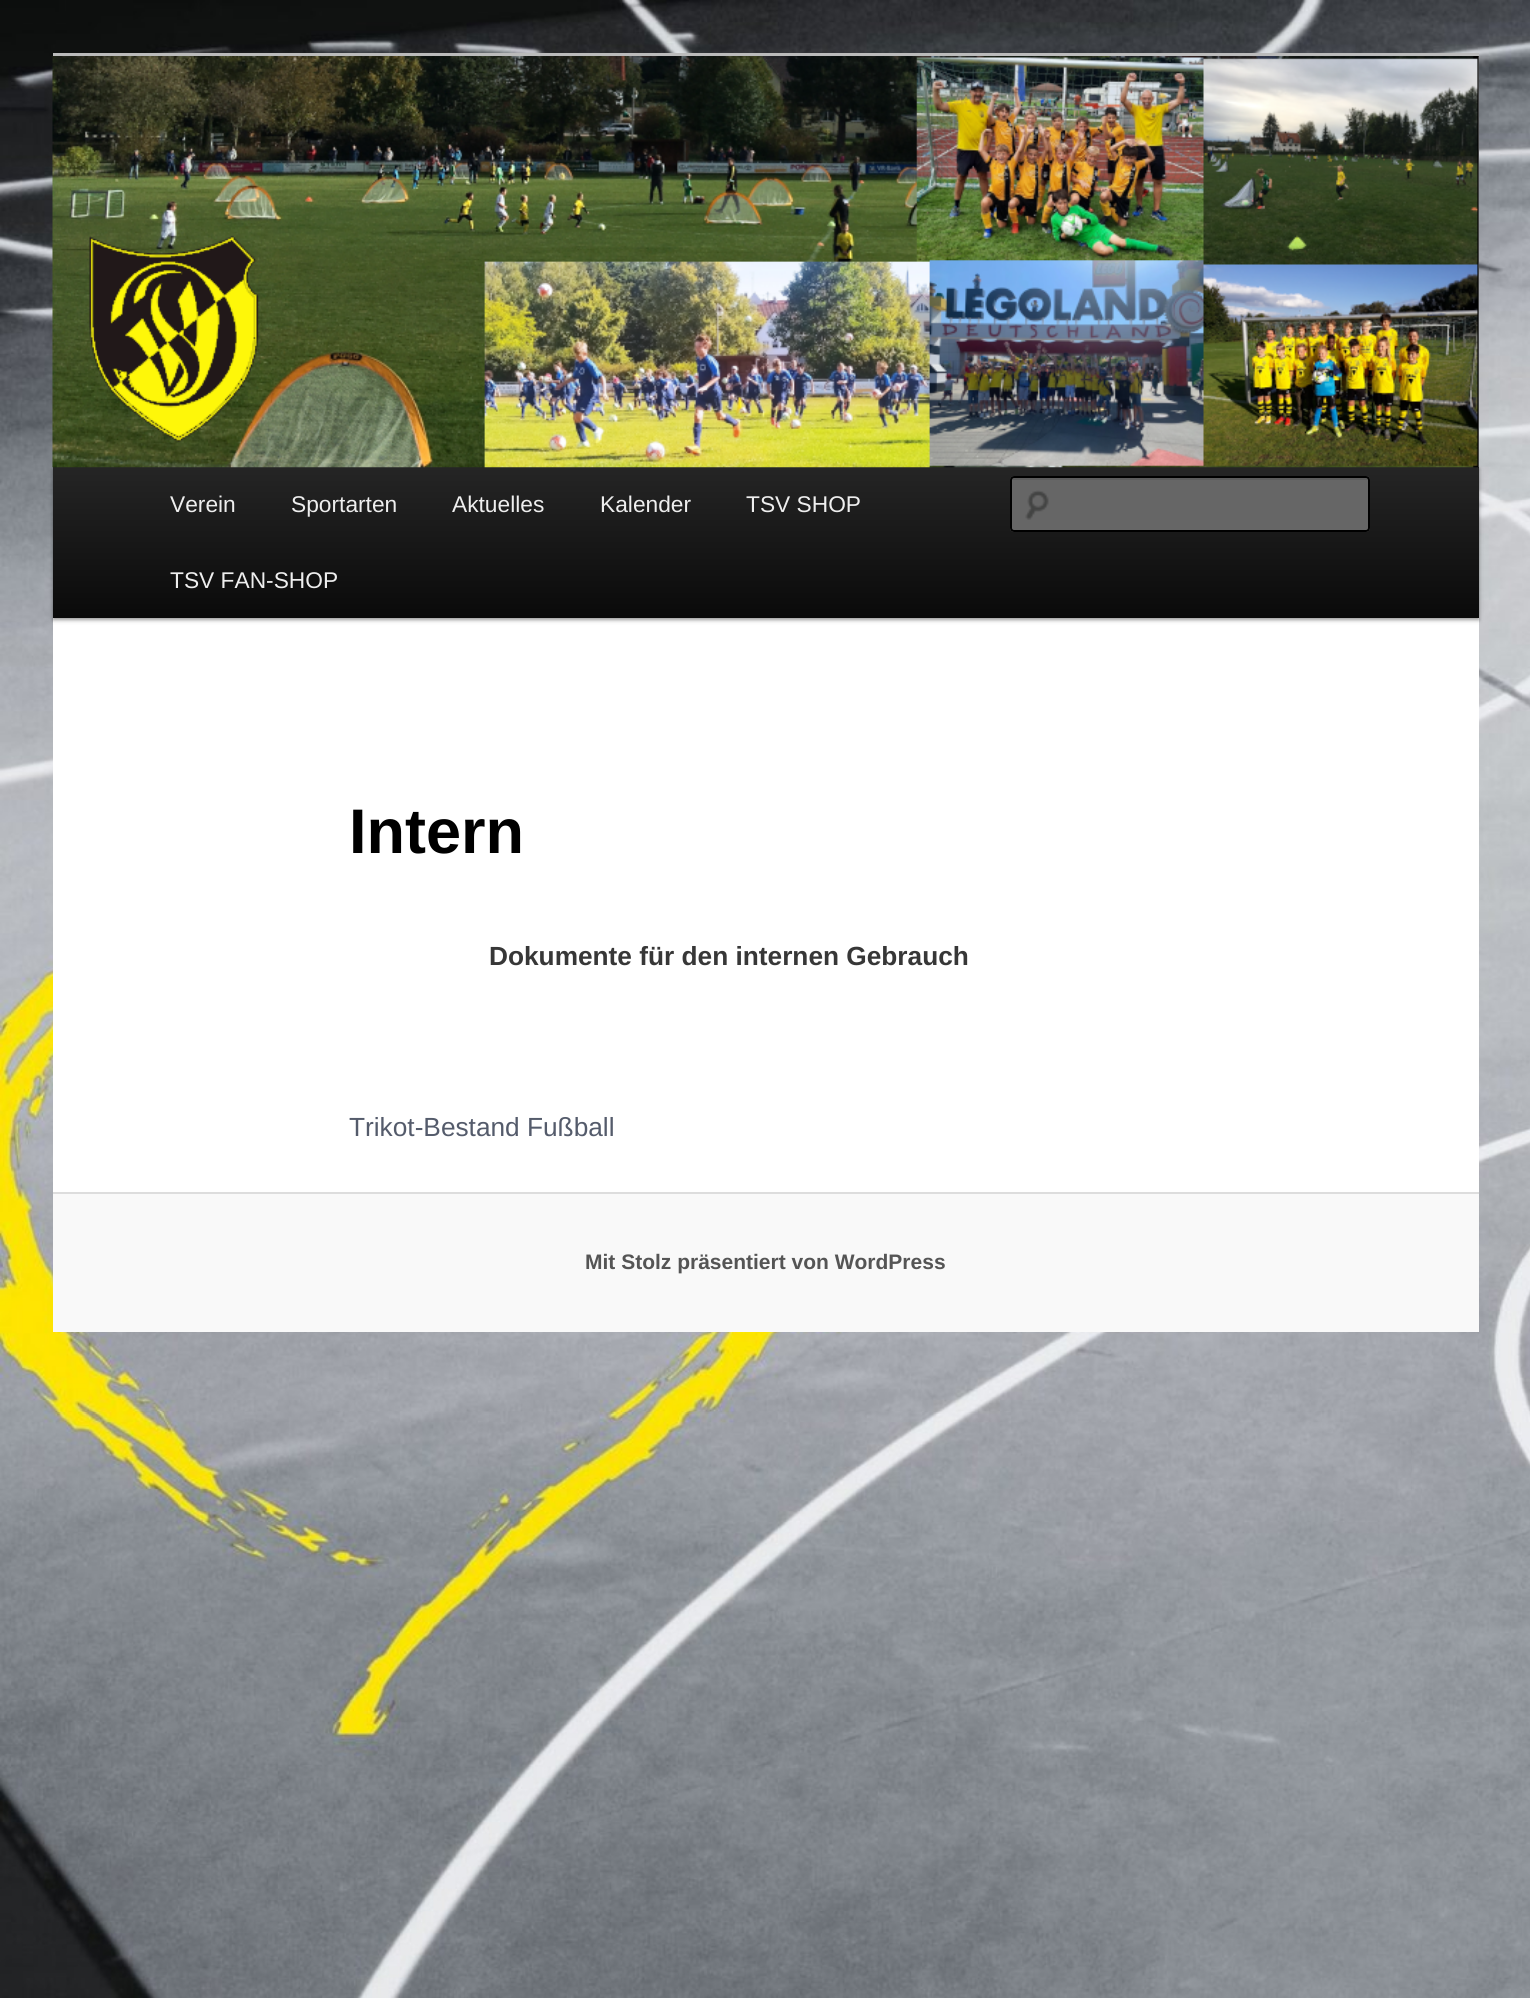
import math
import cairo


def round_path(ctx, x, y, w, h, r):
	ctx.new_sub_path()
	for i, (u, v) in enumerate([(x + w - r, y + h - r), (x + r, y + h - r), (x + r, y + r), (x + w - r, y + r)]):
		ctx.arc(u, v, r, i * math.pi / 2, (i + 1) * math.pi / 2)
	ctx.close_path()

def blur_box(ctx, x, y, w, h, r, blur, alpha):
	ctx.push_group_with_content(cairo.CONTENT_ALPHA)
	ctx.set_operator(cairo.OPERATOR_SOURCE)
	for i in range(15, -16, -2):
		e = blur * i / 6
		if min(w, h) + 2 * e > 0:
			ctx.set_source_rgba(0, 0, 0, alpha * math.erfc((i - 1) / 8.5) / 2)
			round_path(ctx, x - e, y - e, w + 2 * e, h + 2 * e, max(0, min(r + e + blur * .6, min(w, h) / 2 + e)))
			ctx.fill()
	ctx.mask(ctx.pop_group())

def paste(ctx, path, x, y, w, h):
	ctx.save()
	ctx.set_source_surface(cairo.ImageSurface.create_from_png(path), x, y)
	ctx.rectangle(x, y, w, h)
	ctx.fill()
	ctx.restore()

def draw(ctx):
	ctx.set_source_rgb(1, 1, 1)
	ctx.paint()
	paste(ctx, 'media/1.png', 0, 0, 1530, 1998)
	ctx.set_source_rgb(1, 1, 1)
	ctx.rectangle(53, 57, 1426, 1135)
	ctx.fill()
	ctx.set_source_rgb(0.733, 0.733, 0.733)
	ctx.rectangle(53, 53, 1426, 4)
	ctx.fill()
	ctx.set_source_rgb(0, 0, 0)
	blur_box(ctx, 53, 469, 1426, 151, 0, 2, 0.4)
	gradient = cairo.LinearGradient(766, 467, 766, 618)
	gradient.add_color_stop_rgba(0, 0.145, 0.145, 0.145, 1)
	gradient.add_color_stop_rgba(1, 0.039, 0.039, 0.039, 1)
	ctx.set_source(gradient)
	ctx.rectangle(53, 467, 1426, 151)
	ctx.fill()
	paste(ctx, 'media/2.png', 52, 56, 1427, 412)
	ctx.select_font_face('Liberation Sans')
	ctx.set_font_size(22.75)
	ctx.set_source_rgb(0.933, 0.933, 0.933)
	for x, y, s in [
		(170, 512, 'Verein'),
		(291, 512, 'Sportarten'),
		(452, 512, 'Aktuelles'),
		(600, 512, 'Kalender'),
		(746, 512, 'TSV SHOP'),
		(170, 588, 'TSV FAN-SHOP'),
	]:
		ctx.move_to(x, y)
		ctx.show_text(s)
	ctx.set_source_rgb(0.4, 0.4, 0.4)
	round_path(ctx, 1010, 476, 360, 56, 4)
	ctx.fill()
	paste(ctx, 'media/3.png', 1025, 490, 24, 30)
	ctx.set_source_rgb(0.361, 0.361, 0.361)
	ctx.new_path()
	ctx.move_to(1013, 480)
	ctx.line_to(1367, 480)
	ctx.curve_to(1368, 480, 1368, 480, 1368, 481)
	ctx.line_to(1368, 530)
	ctx.line_to(1369, 528)
	ctx.line_to(1369, 480)
	ctx.curve_to(1369, 479, 1368, 478, 1367, 478)
	ctx.line_to(1014, 478)
	ctx.curve_to(1012, 478, 1012, 480, 1012, 481)
	ctx.curve_to(1012, 480, 1012, 480, 1013, 480)
	ctx.close_path()
	ctx.fill()
	round_path(ctx, 1011, 477, 358, 54, 3)
	ctx.set_source_rgb(0, 0, 0)
	ctx.stroke()
	ctx.select_font_face('Liberation Sans', cairo.FONT_SLANT_NORMAL, cairo.FONT_WEIGHT_BOLD)
	ctx.set_font_size(63)
	ctx.move_to(349, 853)
	ctx.show_text('Intern')
	ctx.set_font_size(26.25)
	ctx.set_source_rgb(0.216, 0.216, 0.216)
	ctx.move_to(489, 965)
	ctx.show_text('Dokumente für den internen Gebrauch')
	ctx.select_font_face('Liberation Sans')
	ctx.set_source_rgb(0.329, 0.357, 0.42)
	ctx.move_to(349, 1136)
	ctx.show_text('Trikot-Bestand Fußball')
	ctx.set_source_rgb(0.976, 0.976, 0.976)
	ctx.rectangle(53, 1194, 1426, 138)
	ctx.fill()
	ctx.set_source_rgb(0.867, 0.867, 0.867)
	ctx.rectangle(53, 1192, 1426, 2)
	ctx.fill()
	ctx.select_font_face('Liberation Sans', cairo.FONT_SLANT_NORMAL, cairo.FONT_WEIGHT_BOLD)
	ctx.set_font_size(21)
	ctx.set_source_rgb(0.333, 0.333, 0.333)
	ctx.move_to(585, 1269)
	ctx.show_text('Mit Stolz präsentiert von WordPress')


surface = cairo.ImageSurface(cairo.FORMAT_RGB24, 1530, 1998)
ctx = cairo.Context(surface)
options = cairo.FontOptions()
options.set_hint_metrics(cairo.HINT_METRICS_OFF)
options.set_hint_style(cairo.HINT_STYLE_NONE)
ctx.set_font_options(options)
ctx.set_miter_limit(4)
draw(ctx)
surface.write_to_png('image.png')
